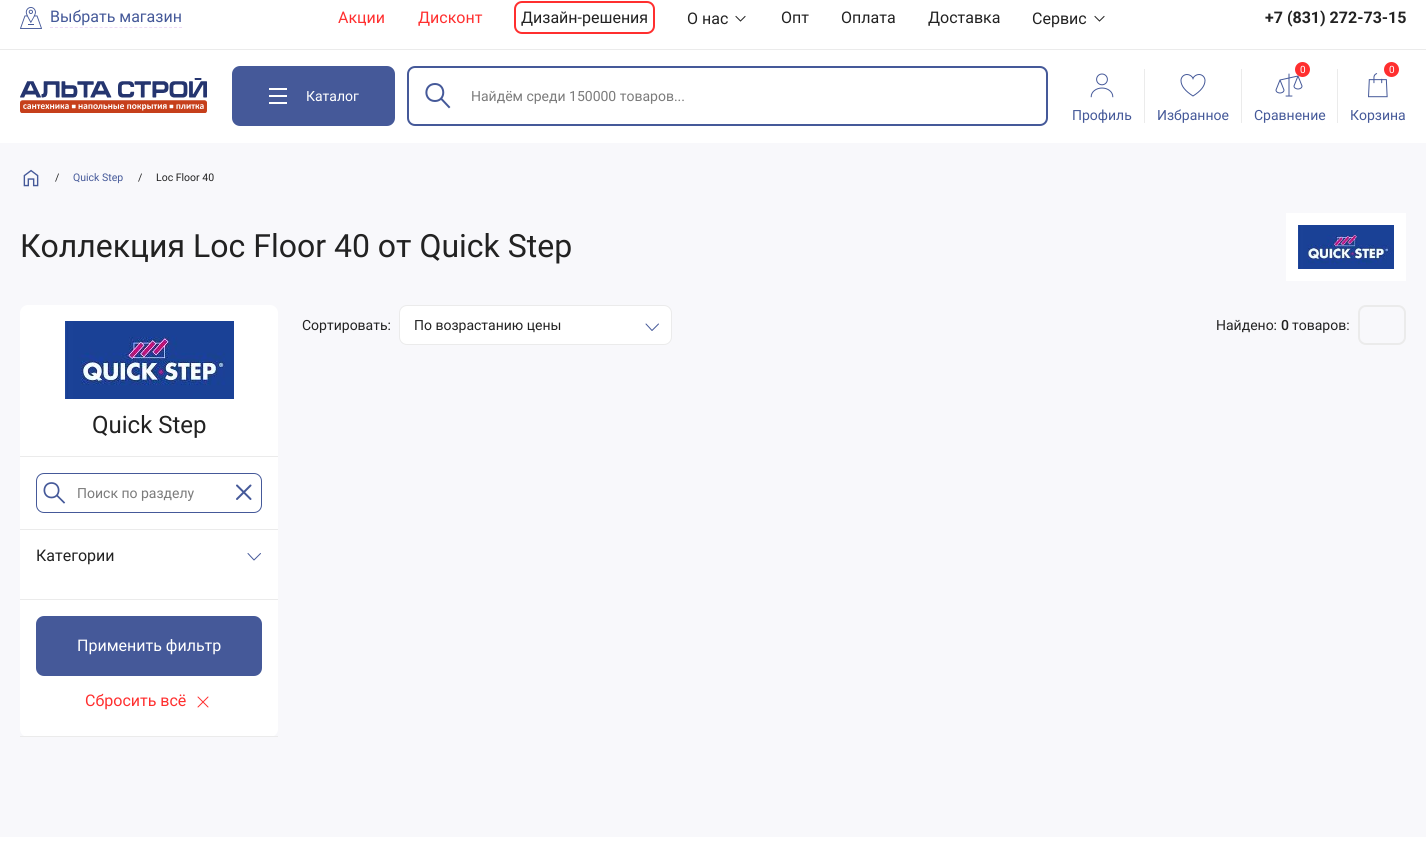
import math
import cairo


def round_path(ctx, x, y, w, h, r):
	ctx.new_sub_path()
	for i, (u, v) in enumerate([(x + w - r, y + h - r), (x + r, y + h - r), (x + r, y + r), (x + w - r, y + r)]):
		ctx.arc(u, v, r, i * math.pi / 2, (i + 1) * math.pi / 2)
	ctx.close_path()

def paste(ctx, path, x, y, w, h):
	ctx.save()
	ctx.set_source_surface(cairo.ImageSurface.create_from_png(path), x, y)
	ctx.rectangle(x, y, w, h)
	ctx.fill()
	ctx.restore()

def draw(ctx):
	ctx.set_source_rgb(0.969, 0.969, 0.984)
	ctx.paint()
	ctx.set_source_rgb(1, 1, 1)
	ctx.rectangle(0, 0, 1426, 49)
	ctx.fill()
	ctx.set_source_rgb(0.918, 0.918, 0.918)
	ctx.rectangle(0, 49, 1426, 1)
	ctx.fill()
	paste(ctx, 'media/1.png', 20, 7, 22, 22)
	ctx.new_path()
	ctx.move_to(50, 27.5)
	ctx.line_to(182, 27.5)
	ctx.set_source_rgb(0.937, 0.855, 0.961)
	ctx.set_line_width(1)
	ctx.set_dash([3, 1.96])
	ctx.stroke()
	ctx.select_font_face('Roboto')
	ctx.set_font_size(16)
	ctx.set_source_rgb(0.271, 0.349, 0.6)
	ctx.move_to(50, 22)
	ctx.show_text('Выбрать магазин')
	ctx.set_source_rgb(1, 0.184, 0.184)
	ctx.move_to(338, 23)
	ctx.show_text('Акции')
	ctx.move_to(418, 23)
	ctx.show_text('Дисконт')
	round_path(ctx, 515, 2, 139, 31, 7)
	ctx.set_line_width(2)
	ctx.set_dash([])
	ctx.stroke()
	ctx.set_source_rgb(0.133, 0.133, 0.133)
	ctx.move_to(521, 23)
	ctx.show_text('Дизайн-решения')
	ctx.move_to(687, 24)
	ctx.show_text('О нас')
	ctx.new_path()
	ctx.move_to(745, 16.5)
	ctx.line_to(740.5, 21)
	ctx.line_to(736, 16.5)
	ctx.set_line_width(1)
	ctx.set_line_cap(cairo.LINE_CAP_SQUARE)
	ctx.stroke()
	for x, y, s in [
		(781, 23, 'Опт'),
		(841, 23, 'Оплата'),
		(928, 23, 'Доставка'),
		(1032, 24, 'Сервис'),
	]:
		ctx.move_to(x, y)
		ctx.show_text(s)
	ctx.new_path()
	ctx.move_to(1104, 16.5)
	ctx.line_to(1099.5, 21)
	ctx.line_to(1095, 16.5)
	ctx.stroke()
	ctx.select_font_face('Roboto', cairo.FONT_SLANT_NORMAL, cairo.FONT_WEIGHT_BOLD)
	ctx.move_to(1265, 23)
	ctx.show_text('+7 (831) 272-73-15')
	ctx.set_source_rgb(1, 1, 1)
	ctx.rectangle(0, 50, 1426, 93)
	ctx.fill()
	paste(ctx, 'media/2.png', 20, 78, 187, 35)
	ctx.set_source_rgb(0.271, 0.349, 0.6)
	round_path(ctx, 232, 66, 163, 60, 8)
	ctx.fill()
	ctx.set_source_rgb(1, 1, 1)
	ctx.rectangle(269, 88, 18, 2)
	ctx.rectangle(269, 95, 18, 2)
	ctx.rectangle(269, 102, 18, 2)
	ctx.fill()
	ctx.select_font_face('Roboto')
	ctx.set_font_size(14)
	ctx.move_to(306, 101)
	ctx.show_text('Каталог')
	round_path(ctx, 408, 67, 639, 58, 7)
	ctx.set_source_rgb(0.271, 0.349, 0.6)
	ctx.set_line_width(2)
	ctx.set_line_cap(cairo.LINE_CAP_BUTT)
	ctx.stroke()
	ctx.new_path()
	ctx.move_to(441, 98.5)
	ctx.line_to(449, 107)
	ctx.move_to(435, 101)
	ctx.curve_to(446, 101, 446, 84, 435, 84)
	ctx.curve_to(423.5, 84, 423.5, 101, 435, 101)
	ctx.close_path()
	ctx.set_line_cap(cairo.LINE_CAP_SQUARE)
	ctx.set_line_join(cairo.LINE_JOIN_ROUND)
	ctx.stroke()
	ctx.set_source_rgb(0.482, 0.482, 0.482)
	ctx.move_to(471, 101)
	ctx.show_text('Найдём среди 150000 товаров...')
	ctx.set_source_rgb(0.918, 0.918, 0.918)
	ctx.rectangle(1144, 69, 1, 54)
	ctx.fill()
	paste(ctx, 'media/3.png', 1090, 73, 24, 25)
	ctx.set_source_rgb(0.271, 0.349, 0.6)
	ctx.move_to(1072, 120)
	ctx.show_text('Профиль')
	ctx.set_source_rgb(0.918, 0.918, 0.918)
	ctx.rectangle(1241, 69, 1, 54)
	ctx.fill()
	paste(ctx, 'media/4.png', 1180, 74, 26, 23)
	ctx.set_source_rgb(0.271, 0.349, 0.6)
	ctx.move_to(1157, 120)
	ctx.show_text('Избранное')
	ctx.set_source_rgb(0.918, 0.918, 0.918)
	ctx.rectangle(1337, 69, 1, 54)
	ctx.fill()
	paste(ctx, 'media/5.png', 1275, 73, 28, 24)
	ctx.set_source_rgb(1, 0.184, 0.184)
	ctx.arc(1302.5, 69.5, 7.5, 0, 2 * math.pi)
	ctx.fill()
	ctx.set_font_size(10)
	ctx.set_source_rgb(1, 1, 1)
	ctx.move_to(1300, 73)
	ctx.show_text('0')
	ctx.set_font_size(14)
	ctx.set_source_rgb(0.271, 0.349, 0.6)
	ctx.move_to(1254, 120)
	ctx.show_text('Сравнение')
	paste(ctx, 'media/6.png', 1368, 73, 20, 25)
	ctx.set_source_rgb(1, 0.184, 0.184)
	ctx.arc(1391.5, 69.5, 7.5, 0, 2 * math.pi)
	ctx.fill()
	ctx.set_font_size(10)
	ctx.set_source_rgb(1, 1, 1)
	ctx.move_to(1389, 73)
	ctx.show_text('0')
	ctx.set_font_size(14)
	ctx.set_source_rgb(0.271, 0.349, 0.6)
	ctx.move_to(1350, 120)
	ctx.show_text('Корзина')
	paste(ctx, 'media/7.png', 23, 169, 16, 18)
	ctx.set_font_size(10.5)
	ctx.set_source_rgb(0.133, 0.133, 0.133)
	ctx.move_to(55, 181)
	ctx.show_text('/')
	ctx.set_source_rgb(0.271, 0.349, 0.6)
	ctx.move_to(73, 181)
	ctx.show_text('Quick Step')
	ctx.set_source_rgb(0.133, 0.133, 0.133)
	ctx.move_to(138, 181)
	ctx.show_text('/')
	ctx.move_to(156, 181)
	ctx.show_text('Loc Floor 40')
	ctx.set_font_size(32)
	ctx.move_to(20, 257)
	ctx.show_text('Коллекция Loc Floor 40 от Quick Step')
	ctx.set_source_rgb(1, 1, 1)
	ctx.rectangle(1286, 213, 120, 68)
	ctx.fill()
	paste(ctx, 'media/8.png', 1298, 225, 96, 44)
	ctx.set_font_size(14)
	ctx.set_source_rgb(0.133, 0.133, 0.133)
	ctx.move_to(302, 330)
	ctx.show_text('Сортировать:')
	ctx.set_source_rgb(1, 1, 1)
	round_path(ctx, 399.5, 305.5, 272, 39, 7.5)
	ctx.fill_preserve()
	ctx.set_source_rgb(0.918, 0.918, 0.918)
	ctx.set_line_width(1)
	ctx.set_line_cap(cairo.LINE_CAP_BUTT)
	ctx.set_line_join(cairo.LINE_JOIN_MITER)
	ctx.stroke()
	ctx.set_source_rgb(0.133, 0.133, 0.133)
	ctx.move_to(414, 330)
	ctx.show_text('По возрастанию цены')
	ctx.new_path()
	ctx.move_to(646, 324)
	ctx.line_to(652, 330.5)
	ctx.line_to(658.5, 324)
	ctx.set_source_rgb(0.271, 0.349, 0.6)
	ctx.set_line_cap(cairo.LINE_CAP_ROUND)
	ctx.set_line_join(cairo.LINE_JOIN_ROUND)
	ctx.stroke()
	ctx.set_source_rgb(0.133, 0.133, 0.133)
	ctx.move_to(1216, 330)
	ctx.show_text('Найдено:')
	ctx.select_font_face('Roboto Medium')
	ctx.move_to(1281, 330)
	ctx.show_text('0')
	ctx.select_font_face('Roboto')
	ctx.move_to(1292, 330)
	ctx.show_text('товаров:')
	ctx.set_source_rgb(0.918, 0.918, 0.918)
	round_path(ctx, 1358, 305, 48, 40, 8)
	ctx.fill()
	ctx.set_source_rgb(0.969, 0.969, 0.984)
	round_path(ctx, 1360, 307, 44, 36, 6)
	ctx.fill()
	ctx.set_source_rgb(1, 1, 1)
	round_path(ctx, 20, 305, 258, 432, 8)
	ctx.fill()
	ctx.set_source_rgb(0.918, 0.918, 0.918)
	ctx.rectangle(20, 456, 258, 1)
	ctx.fill()
	paste(ctx, 'media/9.png', 65, 321, 169, 78)
	ctx.set_font_size(24)
	ctx.set_source_rgb(0.133, 0.133, 0.133)
	ctx.move_to(92, 433)
	ctx.show_text('Quick Step')
	ctx.set_source_rgb(0.918, 0.918, 0.918)
	ctx.rectangle(20, 529, 258, 1)
	ctx.fill()
	round_path(ctx, 36.5, 473.5, 225, 39, 7.5)
	ctx.set_source_rgb(0.271, 0.349, 0.6)
	ctx.set_line_cap(cairo.LINE_CAP_BUTT)
	ctx.set_line_join(cairo.LINE_JOIN_MITER)
	ctx.stroke()
	ctx.new_path()
	ctx.move_to(57, 495.5)
	ctx.line_to(64, 502.5)
	ctx.move_to(51.5, 497.5)
	ctx.curve_to(61, 497.5, 61, 483, 51.5, 483)
	ctx.curve_to(42, 483, 42, 497.5, 51.5, 497.5)
	ctx.close_path()
	ctx.set_line_width(1.7)
	ctx.set_line_cap(cairo.LINE_CAP_SQUARE)
	ctx.set_line_join(cairo.LINE_JOIN_ROUND)
	ctx.stroke()
	ctx.set_font_size(14)
	ctx.set_source_rgb(0.482, 0.482, 0.482)
	ctx.move_to(77, 498)
	ctx.show_text('Поиск по разделу')
	paste(ctx, 'media/10.png', 236, 484, 16, 16)
	ctx.set_source_rgb(0.918, 0.918, 0.918)
	ctx.rectangle(20, 599, 258, 1)
	ctx.fill()
	ctx.set_font_size(16)
	ctx.set_source_rgb(0.133, 0.133, 0.133)
	ctx.move_to(36, 561)
	ctx.show_text('Категории')
	ctx.new_path()
	ctx.move_to(248, 553.5)
	ctx.line_to(254, 560)
	ctx.line_to(260.5, 553.5)
	ctx.set_source_rgb(0.271, 0.349, 0.6)
	ctx.set_line_width(1)
	ctx.set_line_cap(cairo.LINE_CAP_ROUND)
	ctx.stroke()
	ctx.set_source_rgb(0.918, 0.918, 0.918)
	ctx.rectangle(20, 736, 258, 1)
	ctx.fill()
	ctx.set_source_rgb(0.271, 0.349, 0.6)
	round_path(ctx, 36, 616, 226, 60, 8)
	ctx.fill()
	ctx.set_source_rgb(1, 1, 1)
	ctx.move_to(77, 651)
	ctx.show_text('Применить фильтр')
	ctx.set_source_rgb(1, 0.184, 0.184)
	ctx.move_to(85, 706)
	ctx.show_text('Сбросить всё')
	ctx.new_path()
	ctx.move_to(208, 707)
	ctx.line_to(198, 697)
	ctx.move_to(208, 697)
	ctx.line_to(198, 707)
	ctx.close_path()
	ctx.stroke()
	ctx.set_source_rgb(1, 1, 1)
	ctx.rectangle(0, 837, 1426, 12)
	ctx.fill()


surface = cairo.ImageSurface(cairo.FORMAT_RGB24, 1426, 849)
ctx = cairo.Context(surface)
options = cairo.FontOptions()
options.set_hint_metrics(cairo.HINT_METRICS_OFF)
options.set_hint_style(cairo.HINT_STYLE_NONE)
ctx.set_font_options(options)
ctx.set_miter_limit(4)
draw(ctx)
surface.write_to_png('image.png')
